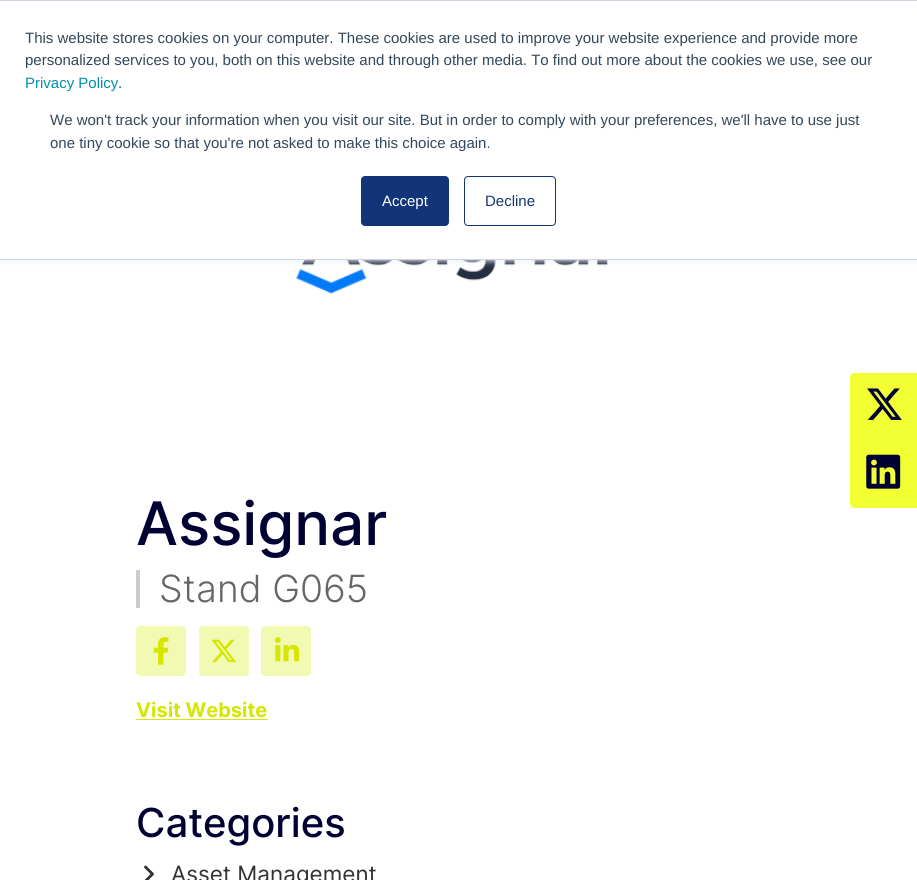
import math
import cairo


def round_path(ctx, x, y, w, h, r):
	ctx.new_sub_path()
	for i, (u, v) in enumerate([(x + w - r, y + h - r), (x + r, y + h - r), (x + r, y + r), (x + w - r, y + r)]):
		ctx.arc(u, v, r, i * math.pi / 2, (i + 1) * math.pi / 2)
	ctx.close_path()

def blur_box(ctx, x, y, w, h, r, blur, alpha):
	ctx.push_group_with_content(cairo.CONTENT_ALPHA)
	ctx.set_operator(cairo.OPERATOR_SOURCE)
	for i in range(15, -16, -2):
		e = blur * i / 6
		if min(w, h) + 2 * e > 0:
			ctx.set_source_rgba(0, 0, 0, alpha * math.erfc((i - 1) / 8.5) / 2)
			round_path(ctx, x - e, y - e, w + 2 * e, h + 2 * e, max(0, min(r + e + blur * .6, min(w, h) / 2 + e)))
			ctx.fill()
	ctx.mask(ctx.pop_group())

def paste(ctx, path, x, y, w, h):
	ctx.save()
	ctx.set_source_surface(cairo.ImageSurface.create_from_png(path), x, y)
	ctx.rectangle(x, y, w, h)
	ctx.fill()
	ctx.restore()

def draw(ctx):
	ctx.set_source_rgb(1, 1, 1)
	ctx.paint()
	paste(ctx, 'media/3.png', 296, 260, 326, 34)
	ctx.set_source_rgb(0.918, 0.941, 0.965)
	blur_box(ctx, 0, 1, 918, 260, 0, 3, 1)
	ctx.set_source_rgb(1, 1, 1)
	ctx.rectangle(0, 1, 917, 258)
	ctx.fill()
	ctx.set_source_rgb(0.796, 0.839, 0.886)
	ctx.rectangle(0, 0, 917, 1)
	ctx.rectangle(0, 259, 917, 1)
	ctx.fill()
	ctx.select_font_face('Liberation Sans')
	ctx.set_font_size(15)
	ctx.set_source_rgb(0.2, 0.278, 0.357)
	ctx.move_to(25, 43)
	ctx.show_text('This website stores cookies on your computer. These cookies are used to improve your website experience and provide more')
	ctx.move_to(25, 65)
	ctx.show_text('personalized services to you, both on this website and through other media. To find out more about the cookies we use, see our')
	ctx.set_source_rgb(0, 0.569, 0.682)
	ctx.move_to(25, 88)
	ctx.show_text('Privacy Policy')
	ctx.set_source_rgb(0.2, 0.278, 0.357)
	for x, y, s in [
		(118, 88, '.'),
		(50, 125, 'We won\'t track your information when you visit our site. But in order to comply with your preferences, we\'ll have to use just'),
		(50, 148, 'one tiny cookie so that you\'re not asked to make this choice again.'),
	]:
		ctx.move_to(x, y)
		ctx.show_text(s)
	ctx.set_source_rgb(0.071, 0.208, 0.475)
	round_path(ctx, 361.5, 176.5, 87, 49, 3.5)
	ctx.fill_preserve()
	ctx.set_line_width(1)
	ctx.stroke()
	ctx.set_source_rgb(1, 1, 1)
	ctx.move_to(382, 206)
	ctx.show_text('Accept')
	round_path(ctx, 464.5, 176.5, 91, 49, 3.5)
	ctx.set_source_rgb(0.071, 0.208, 0.475)
	ctx.stroke()
	ctx.move_to(485, 206)
	ctx.show_text('Decline')
	ctx.set_source_rgb(0.945, 1, 0.2)
	ctx.new_path()
	ctx.move_to(855, 373)
	ctx.line_to(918, 373)
	ctx.line_to(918, 440)
	ctx.line_to(850, 440)
	ctx.line_to(850, 378)
	ctx.curve_to(850, 375, 852, 373, 855, 373)
	ctx.close_path()
	ctx.fill()
	paste(ctx, 'media/1.png', 867, 388, 35, 32)
	ctx.new_path()
	ctx.move_to(850, 440)
	ctx.line_to(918, 440)
	ctx.line_to(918, 508)
	ctx.line_to(855, 508)
	ctx.curve_to(852, 508, 850, 506, 850, 503)
	ctx.close_path()
	ctx.fill()
	paste(ctx, 'media/2.png', 866, 454, 35, 35)
	ctx.select_font_face('Inter Medium')
	ctx.set_font_size(60)
	ctx.set_source_rgb(0, 0, 0.196)
	ctx.move_to(136, 545)
	ctx.show_text('Assignar')
	ctx.set_source_rgb(0.8, 0.8, 0.8)
	ctx.rectangle(136, 570, 4, 38)
	ctx.fill()
	ctx.select_font_face('Inter Light')
	ctx.set_font_size(37.5)
	ctx.set_source_rgb(0.4, 0.4, 0.4)
	ctx.move_to(159, 602)
	ctx.show_text('Stand G065')
	ctx.set_source_rgb(0.949, 0.973, 0.702)
	round_path(ctx, 136, 626, 50, 50, 4)
	ctx.fill()
	paste(ctx, 'media/4.png', 153, 637, 16, 28)
	round_path(ctx, 199, 626, 50, 50, 4)
	ctx.fill()
	paste(ctx, 'media/5.png', 211, 639, 25, 24)
	round_path(ctx, 261, 626, 50, 50, 4)
	ctx.fill()
	paste(ctx, 'media/6.png', 275, 637, 25, 25)
	ctx.select_font_face('Inter', cairo.FONT_SLANT_NORMAL, cairo.FONT_WEIGHT_BOLD)
	ctx.set_font_size(20)
	ctx.set_source_rgb(0.835, 0.902, 0)
	ctx.move_to(136, 717)
	ctx.show_text('Visit Website')
	ctx.rectangle(136, 719, 132, 1)
	ctx.fill()
	ctx.select_font_face('Inter Medium')
	ctx.set_font_size(40)
	ctx.set_source_rgb(0, 0, 0.196)
	ctx.move_to(136, 837)
	ctx.show_text('Categories')
	paste(ctx, 'media/7.png', 144, 865, 10, 15)
	ctx.select_font_face('Inter')
	ctx.set_font_size(22.5)
	ctx.set_source_rgb(0.2, 0.2, 0.2)
	ctx.move_to(171, 882)
	ctx.show_text('Asset Management')


surface = cairo.ImageSurface(cairo.FORMAT_RGB24, 917, 880)
ctx = cairo.Context(surface)
options = cairo.FontOptions()
options.set_hint_metrics(cairo.HINT_METRICS_OFF)
options.set_hint_style(cairo.HINT_STYLE_NONE)
ctx.set_font_options(options)
ctx.set_miter_limit(4)
draw(ctx)
surface.write_to_png('image.png')
